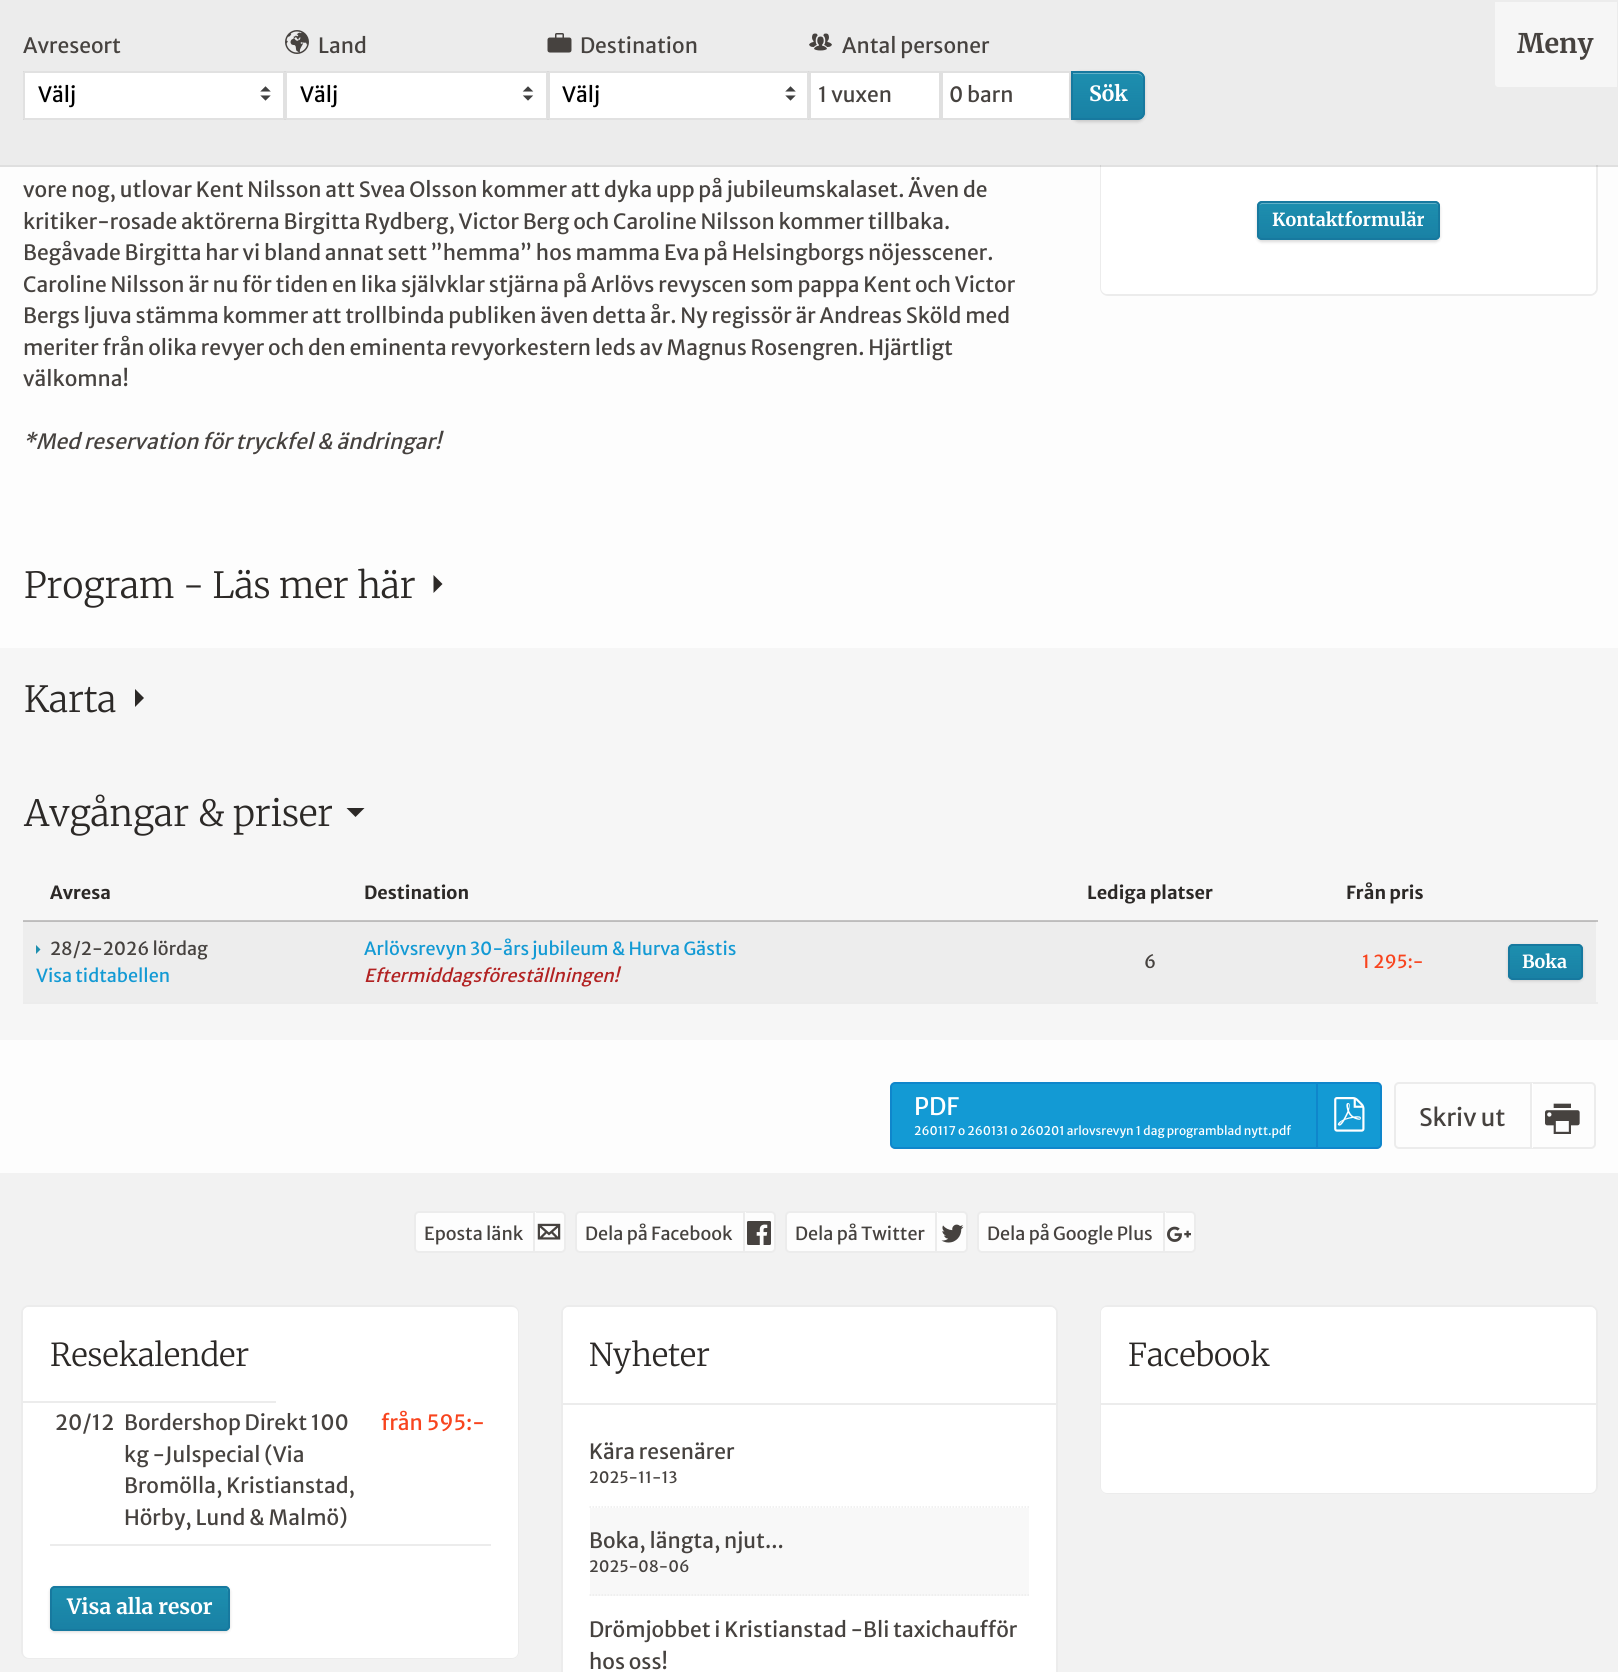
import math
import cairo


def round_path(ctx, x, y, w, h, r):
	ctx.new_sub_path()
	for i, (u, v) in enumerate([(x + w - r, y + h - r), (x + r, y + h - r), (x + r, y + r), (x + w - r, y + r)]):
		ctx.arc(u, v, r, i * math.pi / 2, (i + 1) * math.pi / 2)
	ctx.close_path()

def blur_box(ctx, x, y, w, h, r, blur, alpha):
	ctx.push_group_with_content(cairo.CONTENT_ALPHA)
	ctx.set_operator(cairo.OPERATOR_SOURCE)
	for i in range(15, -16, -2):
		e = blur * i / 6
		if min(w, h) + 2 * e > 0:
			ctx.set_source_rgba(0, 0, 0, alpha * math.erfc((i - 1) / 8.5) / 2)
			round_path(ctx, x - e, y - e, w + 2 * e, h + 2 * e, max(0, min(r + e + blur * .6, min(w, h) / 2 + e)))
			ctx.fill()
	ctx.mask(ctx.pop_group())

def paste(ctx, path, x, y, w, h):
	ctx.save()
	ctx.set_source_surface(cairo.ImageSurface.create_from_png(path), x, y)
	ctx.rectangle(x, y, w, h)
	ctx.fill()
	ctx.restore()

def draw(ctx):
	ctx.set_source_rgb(0.992, 0.992, 0.992)
	ctx.paint()
	round_path(ctx, 1101, -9, 496, 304, 7)
	ctx.set_source_rgb(0.922, 0.922, 0.922)
	ctx.stroke()
	ctx.set_source_rgb(1, 1, 1)
	round_path(ctx, 1101, -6, 495, 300, 6)
	ctx.fill()
	ctx.set_source_rgba(0, 0, 0, 0.12)
	ctx.new_path()
	ctx.move_to(0, 165)
	ctx.line_to(0, 167)
	ctx.line_to(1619, 167)
	ctx.line_to(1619, 2)
	ctx.line_to(1618, 2)
	ctx.line_to(1618, 165)
	ctx.close_path()
	ctx.fill()
	ctx.set_source_rgb(0.922, 0.922, 0.922)
	ctx.rectangle(0, 0, 1618, 165)
	ctx.fill()
	ctx.select_font_face('Merriweather Sans')
	ctx.set_font_size(21)
	ctx.set_source_rgb(0.275, 0.259, 0.247)
	ctx.move_to(23, 53)
	ctx.show_text('Avreseort')
	ctx.set_source_rgb(1, 1, 1)
	round_path(ctx, 23, 71, 262, 49, 1.5)
	ctx.fill()
	ctx.rectangle(24, 72, 260, 47)
	ctx.set_source_rgba(0, 0, 0, 0.12)
	ctx.stroke()
	ctx.set_source_rgb(0, 0, 0)
	ctx.move_to(38, 102)
	ctx.show_text('Välj')
	paste(ctx, 'media/1.png', 260, 86, 11, 15)
	paste(ctx, 'media/2.png', 285, 30, 24, 24)
	ctx.set_source_rgb(0.275, 0.259, 0.247)
	ctx.move_to(318, 53)
	ctx.show_text('Land')
	ctx.set_source_rgb(1, 1, 1)
	round_path(ctx, 285, 71, 263, 49, 1.5)
	ctx.fill()
	ctx.rectangle(286, 72, 261, 47)
	ctx.set_source_rgba(0, 0, 0, 0.12)
	ctx.stroke()
	ctx.set_source_rgb(0, 0, 0)
	ctx.move_to(300, 102)
	ctx.show_text('Välj')
	paste(ctx, 'media/3.png', 522, 86, 12, 15)
	paste(ctx, 'media/4.png', 547, 33, 25, 20)
	ctx.set_source_rgb(0.275, 0.259, 0.247)
	ctx.move_to(580, 53)
	ctx.show_text('Destination')
	ctx.set_source_rgb(1, 1, 1)
	round_path(ctx, 548, 71, 261, 49, 1.5)
	ctx.fill()
	ctx.rectangle(549, 72, 259, 47)
	ctx.set_source_rgba(0, 0, 0, 0.12)
	ctx.stroke()
	ctx.set_source_rgb(0, 0, 0)
	ctx.move_to(562, 102)
	ctx.show_text('Välj')
	paste(ctx, 'media/1.png', 785, 86, 11, 15)
	paste(ctx, 'media/5.png', 809, 33, 23, 18)
	ctx.set_source_rgb(0.275, 0.259, 0.247)
	ctx.move_to(842, 53)
	ctx.show_text('Antal personer')
	ctx.set_source_rgb(1, 1, 1)
	ctx.rectangle(810, 72, 130, 47)
	ctx.fill_preserve()
	ctx.set_source_rgb(0.878, 0.878, 0.878)
	ctx.stroke()
	ctx.set_source_rgb(0.275, 0.259, 0.247)
	ctx.move_to(818, 102)
	ctx.show_text('1 vuxen')
	ctx.set_source_rgb(1, 1, 1)
	ctx.rectangle(942, 72, 128, 47)
	ctx.fill_preserve()
	ctx.set_source_rgb(0.878, 0.878, 0.878)
	ctx.stroke()
	ctx.set_source_rgb(0.275, 0.259, 0.247)
	ctx.move_to(949, 102)
	ctx.show_text('0 barn')
	ctx.set_source_rgb(0, 0, 0)
	blur_box(ctx, 1071, 72, 74, 50, 8, 1.5, 0.15)
	ctx.set_source_rgb(0.114, 0.561, 0.686)
	ctx.new_path()
	ctx.move_to(1071, 71)
	ctx.line_to(1137, 71)
	ctx.curve_to(1141.5, 71, 1145, 74.5, 1145, 79)
	ctx.line_to(1145, 112)
	ctx.curve_to(1145, 116.5, 1141.5, 120, 1137, 120)
	ctx.line_to(1071, 120)
	ctx.close_path()
	ctx.fill()
	ctx.save()
	ctx.new_path()
	ctx.move_to(1071, 71)
	ctx.line_to(1137, 71)
	ctx.curve_to(1141.5, 71, 1145, 74.5, 1145, 79)
	ctx.line_to(1145, 112)
	ctx.curve_to(1145, 116.5, 1141.5, 120, 1137, 120)
	ctx.line_to(1071, 120)
	ctx.close_path()
	ctx.clip()
	gradient = cairo.LinearGradient(1108, 72, 1108, 119)
	gradient.add_color_stop_rgba(0, 0.09, 0.475, 0.624, 0)
	gradient.add_color_stop_rgba(1, 0.09, 0.475, 0.624, 0.65)
	ctx.set_source(gradient)
	ctx.rectangle(1073, 74, 72, 45)
	ctx.fill()
	ctx.restore()
	ctx.set_source_rgb(0.38, 0.694, 0.78)
	ctx.new_path()
	ctx.move_to(1073, 72)
	ctx.line_to(1073, 74)
	ctx.line_to(1137, 74)
	ctx.curve_to(1140, 74, 1143, 76, 1143, 80)
	ctx.curve_to(1143, 76, 1142, 72, 1137, 72)
	ctx.close_path()
	ctx.fill()
	ctx.new_path()
	ctx.move_to(1072, 72)
	ctx.line_to(1137, 72)
	ctx.curve_to(1141, 72, 1144, 75, 1144, 79)
	ctx.line_to(1144, 112)
	ctx.curve_to(1144, 116, 1141, 119, 1137, 119)
	ctx.line_to(1072, 119)
	ctx.close_path()
	ctx.set_source_rgb(0.09, 0.475, 0.624)
	ctx.stroke()
	ctx.select_font_face('Merriweather', cairo.FONT_SLANT_NORMAL, cairo.FONT_WEIGHT_BOLD)
	ctx.set_source_rgb(1, 1, 1)
	ctx.move_to(1089, 101)
	ctx.show_text('Sök')
	ctx.set_source_rgb(0.961, 0.961, 0.961)
	ctx.new_path()
	ctx.move_to(1494, 1)
	ctx.line_to(1618, 1)
	ctx.line_to(1618, 88)
	ctx.line_to(1498, 88)
	ctx.curve_to(1496, 88, 1494, 86, 1494, 84)
	ctx.close_path()
	ctx.fill_preserve()
	ctx.set_source_rgb(0.922, 0.922, 0.922)
	ctx.stroke()
	ctx.set_font_size(27)
	ctx.set_source_rgb(0.275, 0.259, 0.247)
	ctx.move_to(1517, 53)
	ctx.show_text('Meny')
	ctx.select_font_face('Merriweather Sans')
	ctx.set_font_size(21)
	for x, y, s in [
		(23, 197, 'vore nog, utlovar Kent Nilsson att Svea Olsson kommer att dyka upp på jubileumskalaset. Även de'),
		(23, 229, 'kritiker-rosade aktörerna Birgitta Rydberg, Victor Berg och Caroline Nilsson kommer tillbaka.'),
		(23, 260, 'Begåvade Birgitta har vi bland annat sett ”hemma” hos mamma Eva på Helsingborgs nöjesscener.'),
		(23, 292, 'Caroline Nilsson är nu för tiden en lika självklar stjärna på Arlövs revyscen som pappa Kent och Victor'),
		(23, 323, 'Bergs ljuva stämma kommer att trollbinda publiken även detta år. Ny regissör är Andreas Sköld med'),
		(23, 355, 'meriter från olika revyer och den eminenta revyorkestern leds av Magnus Rosengren. Hjärtligt'),
		(23, 386, 'välkomna!'),
	]:
		ctx.move_to(x, y)
		ctx.show_text(s)
	ctx.select_font_face('Merriweather Sans', cairo.FONT_SLANT_ITALIC)
	ctx.move_to(23, 449)
	ctx.show_text('*Med reservation för tryckfel & ändringar!')
	ctx.set_source_rgb(0, 0, 0)
	blur_box(ctx, 1257, 203, 183, 39, 5, 1.5, 0.15)
	ctx.set_source_rgb(0.114, 0.561, 0.686)
	round_path(ctx, 1257, 201, 183, 39, 5)
	ctx.fill()
	ctx.save()
	round_path(ctx, 1257, 201, 183, 39, 5)
	ctx.clip()
	gradient = cairo.LinearGradient(1349, 203, 1349, 239)
	gradient.add_color_stop_rgba(0, 0.09, 0.475, 0.624, 0)
	gradient.add_color_stop_rgba(1, 0.09, 0.475, 0.624, 0.65)
	ctx.set_source(gradient)
	ctx.rectangle(1257, 204, 183, 35)
	ctx.fill()
	ctx.restore()
	ctx.set_source_rgba(1, 1, 1, 0.3)
	ctx.new_path()
	ctx.move_to(1262, 204)
	ctx.line_to(1436, 204)
	ctx.curve_to(1440, 204, 1438, 216, 1438, 217)
	ctx.line_to(1438, 238)
	ctx.curve_to(1439, 238, 1439, 237, 1439, 236)
	ctx.line_to(1439, 206)
	ctx.curve_to(1439, 204, 1438, 203, 1436, 203)
	ctx.line_to(1262, 203)
	ctx.curve_to(1261, 203, 1260, 204, 1259, 205)
	ctx.close_path()
	ctx.fill()
	round_path(ctx, 1258, 202, 181, 37, 4)
	ctx.set_source_rgb(0.09, 0.475, 0.624)
	ctx.stroke()
	ctx.select_font_face('Merriweather', cairo.FONT_SLANT_NORMAL, cairo.FONT_WEIGHT_BOLD)
	ctx.set_font_size(18)
	ctx.set_source_rgb(1, 1, 1)
	ctx.move_to(1272, 226)
	ctx.show_text('Kontaktformulär')
	ctx.select_font_face('Merriweather Light')
	ctx.set_font_size(36)
	ctx.set_source_rgb(0.173, 0.161, 0.153)
	ctx.move_to(24, 598)
	ctx.show_text('Program - Läs mer här')
	ctx.new_path()
	ctx.move_to(433.5, 593)
	ctx.line_to(442.5, 584)
	ctx.line_to(433.5, 575)
	ctx.close_path()
	ctx.fill()
	ctx.set_source_rgb(0.961, 0.961, 0.961)
	ctx.rectangle(0, 648, 1618, 392)
	ctx.fill()
	ctx.set_source_rgb(0.173, 0.161, 0.153)
	ctx.move_to(24, 712)
	ctx.show_text('Karta')
	ctx.new_path()
	ctx.move_to(135, 707)
	ctx.line_to(144, 698)
	ctx.line_to(135, 689)
	ctx.close_path()
	ctx.fill()
	ctx.set_source_rgb(0.765, 0.761, 0.761)
	ctx.rectangle(23, 920, 1575, 2)
	ctx.fill()
	ctx.set_source_rgb(0.173, 0.161, 0.153)
	ctx.move_to(24, 826)
	ctx.show_text('Avgångar & priser')
	ctx.new_path()
	ctx.move_to(346.5, 808)
	ctx.line_to(355.5, 817)
	ctx.line_to(364.5, 808)
	ctx.close_path()
	ctx.fill()
	ctx.select_font_face('Merriweather Sans', cairo.FONT_SLANT_NORMAL, cairo.FONT_WEIGHT_BOLD)
	ctx.set_font_size(18)
	for x, y, s in [
		(50, 899, 'Avresa'),
		(364, 899, 'Destination'),
		(1087, 899, 'Lediga platser'),
		(1346, 899, 'Från pris'),
	]:
		ctx.move_to(x, y)
		ctx.show_text(s)
	ctx.set_source_rgb(0.929, 0.929, 0.929)
	ctx.rectangle(23, 922, 1573, 80)
	ctx.fill()
	ctx.set_source_rgb(0.741, 0.737, 0.737)
	ctx.rectangle(23, 921, 1573, 1)
	ctx.fill()
	ctx.set_source_rgb(0.922, 0.922, 0.922)
	ctx.rectangle(23, 1002, 1575, 2)
	ctx.fill()
	ctx.set_source_rgb(0.114, 0.561, 0.686)
	ctx.new_path()
	ctx.move_to(36, 954)
	ctx.line_to(36, 945)
	ctx.line_to(40.5, 949.5)
	ctx.close_path()
	ctx.fill()
	ctx.select_font_face('Merriweather Sans')
	ctx.set_source_rgb(0.275, 0.259, 0.247)
	ctx.move_to(50, 955)
	ctx.show_text('28/2-2026 lördag')
	ctx.set_source_rgb(0.075, 0.604, 0.831)
	ctx.move_to(36, 982)
	ctx.show_text('Visa tidtabellen')
	ctx.move_to(364, 955)
	ctx.show_text('Arlövsrevyn 30-års jubileum & Hurva Gästis')
	ctx.select_font_face('Merriweather Sans', cairo.FONT_SLANT_ITALIC)
	ctx.set_source_rgb(0.698, 0.133, 0.133)
	ctx.move_to(364, 982)
	ctx.show_text('Eftermiddagsföreställningen!')
	ctx.select_font_face('Merriweather Sans')
	ctx.set_source_rgb(0.275, 0.259, 0.247)
	ctx.move_to(1144, 968)
	ctx.show_text('6')
	ctx.set_source_rgb(0.969, 0.267, 0.118)
	ctx.move_to(1362, 968)
	ctx.show_text('1 295:-')
	ctx.set_source_rgb(0, 0, 0)
	blur_box(ctx, 1508, 945, 75, 36, 5, 1.5, 0.15)
	ctx.set_source_rgb(0.114, 0.561, 0.686)
	round_path(ctx, 1508, 944, 75, 36, 5)
	ctx.fill()
	ctx.save()
	round_path(ctx, 1508, 944, 75, 36, 5)
	ctx.clip()
	gradient = cairo.LinearGradient(1545, 945, 1545, 978)
	gradient.add_color_stop_rgba(0, 0.09, 0.475, 0.624, 0)
	gradient.add_color_stop_rgba(1, 0.09, 0.475, 0.624, 0.65)
	ctx.set_source(gradient)
	ctx.rectangle(1508, 946, 75, 32)
	ctx.fill()
	ctx.restore()
	round_path(ctx, 1509, 945, 73, 34, 4)
	ctx.set_source_rgb(0.09, 0.475, 0.624)
	ctx.stroke()
	ctx.select_font_face('Merriweather', cairo.FONT_SLANT_NORMAL, cairo.FONT_WEIGHT_BOLD)
	ctx.set_source_rgb(1, 1, 1)
	ctx.move_to(1522, 968)
	ctx.show_text('Boka')
	ctx.set_source_rgb(0.075, 0.604, 0.831)
	round_path(ctx, 891, 1083, 490, 65, 4)
	ctx.fill_preserve()
	ctx.set_source_rgb(0.059, 0.525, 0.796)
	ctx.stroke()
	ctx.select_font_face('Merriweather Sans')
	ctx.set_font_size(24)
	ctx.set_source_rgb(1, 1, 1)
	ctx.move_to(914, 1115)
	ctx.show_text('PDF')
	ctx.set_font_size(12)
	ctx.move_to(914, 1135)
	ctx.show_text('260117 o 260131 o 260201 arlovsrevyn 1 dag programblad nytt.pdf')
	ctx.set_source_rgb(0.059, 0.525, 0.796)
	ctx.rectangle(1316, 1083, 2, 65)
	ctx.fill()
	paste(ctx, 'media/6.png', 1334, 1097, 31, 35)
	round_path(ctx, 1395, 1083, 200, 65, 4)
	ctx.set_source_rgb(0.922, 0.922, 0.922)
	ctx.stroke()
	ctx.set_font_size(24)
	ctx.set_source_rgb(0.275, 0.259, 0.247)
	ctx.move_to(1419, 1126)
	ctx.show_text('Skriv ut')
	ctx.set_source_rgba(1, 1, 1, 0.87)
	ctx.rectangle(1532, 1083, 1, 65)
	ctx.fill()
	ctx.set_source_rgb(0.922, 0.922, 0.922)
	ctx.rectangle(1530, 1083, 2, 65)
	ctx.fill()
	paste(ctx, 'media/7.png', 1545, 1103, 35, 31)
	ctx.set_source_rgb(0.949, 0.949, 0.949)
	ctx.rectangle(0, 1173, 1618, 499)
	ctx.fill()
	ctx.set_source_rgb(0.992, 0.992, 0.992)
	round_path(ctx, 415, 1212, 150, 40, 4)
	ctx.fill_preserve()
	ctx.set_source_rgb(0.922, 0.922, 0.922)
	ctx.stroke()
	ctx.set_font_size(18)
	ctx.set_source_rgb(0.275, 0.259, 0.247)
	ctx.move_to(424, 1240)
	ctx.show_text('Eposta länk')
	ctx.set_source_rgba(1, 1, 1, 0.87)
	ctx.rectangle(535, 1212, 1, 1)
	ctx.fill()
	ctx.set_source_rgb(0.922, 0.922, 0.922)
	ctx.rectangle(533, 1212, 2, 39)
	ctx.fill()
	paste(ctx, 'media/8.png', 537, 1223, 24, 17)
	ctx.set_source_rgb(0.992, 0.992, 0.992)
	round_path(ctx, 576, 1212, 199, 40, 4)
	ctx.fill_preserve()
	ctx.set_source_rgb(0.922, 0.922, 0.922)
	ctx.stroke()
	ctx.set_source_rgb(0.275, 0.259, 0.247)
	ctx.move_to(585, 1240)
	ctx.show_text('Dela på Facebook')
	ctx.set_source_rgba(1, 1, 1, 0.87)
	ctx.rectangle(745, 1212, 1, 1)
	ctx.fill()
	ctx.set_source_rgb(0.922, 0.922, 0.922)
	ctx.rectangle(743, 1212, 2, 39)
	ctx.fill()
	paste(ctx, 'media/9.png', 747, 1221, 24, 24)
	ctx.set_source_rgb(0.992, 0.992, 0.992)
	round_path(ctx, 786, 1212, 181, 40, 4)
	ctx.fill_preserve()
	ctx.set_source_rgb(0.922, 0.922, 0.922)
	ctx.stroke()
	ctx.set_source_rgb(0.275, 0.259, 0.247)
	ctx.move_to(795, 1240)
	ctx.show_text('Dela på Twitter')
	ctx.set_source_rgba(1, 1, 1, 0.87)
	ctx.rectangle(937, 1212, 1, 1)
	ctx.fill()
	ctx.set_source_rgb(0.922, 0.922, 0.922)
	ctx.rectangle(935, 1212, 2, 39)
	ctx.fill()
	paste(ctx, 'media/10.png', 941, 1224, 23, 19)
	ctx.set_source_rgb(0.992, 0.992, 0.992)
	round_path(ctx, 978, 1212, 217, 40, 4)
	ctx.fill_preserve()
	ctx.set_source_rgb(0.922, 0.922, 0.922)
	ctx.stroke()
	ctx.set_source_rgb(0.275, 0.259, 0.247)
	ctx.move_to(987, 1240)
	ctx.show_text('Dela på Google Plus')
	ctx.set_source_rgba(1, 1, 1, 0.87)
	ctx.rectangle(1165, 1212, 1, 1)
	ctx.fill()
	ctx.set_source_rgb(0.922, 0.922, 0.922)
	ctx.rectangle(1163, 1212, 2, 39)
	ctx.fill()
	paste(ctx, 'media/11.png', 1167, 1226, 24, 16)
	round_path(ctx, 22, 1306, 496, 352, 7)
	ctx.stroke()
	ctx.set_source_rgb(1, 1, 1)
	round_path(ctx, 23, 1307, 495, 351, 6)
	ctx.fill()
	ctx.new_path()
	ctx.move_to(29, 1307)
	ctx.line_to(270, 1307)
	ctx.curve_to(273.5, 1307, 276, 1309.5, 276, 1313)
	ctx.line_to(276, 1403)
	ctx.line_to(23, 1403)
	ctx.line_to(23, 1313)
	ctx.curve_to(23, 1309.5, 25.5, 1307, 29, 1307)
	ctx.close_path()
	ctx.fill()
	ctx.select_font_face('Merriweather Light')
	ctx.set_font_size(31.5)
	ctx.set_source_rgb(0.173, 0.161, 0.153)
	ctx.move_to(50, 1366)
	ctx.show_text('Resekalender')
	ctx.set_source_rgb(0.922, 0.922, 0.922)
	ctx.rectangle(23, 1401, 253, 2)
	ctx.fill()
	ctx.rectangle(50, 1544, 441, 2)
	ctx.fill()
	ctx.select_font_face('Merriweather Sans')
	ctx.set_font_size(21)
	ctx.set_source_rgb(0.275, 0.259, 0.247)
	for x, y, s in [
		(55, 1430, '20/12'),
		(124, 1430, 'Bordershop Direkt 100'),
		(124, 1462, 'kg -Julspecial (Via'),
		(124, 1493, 'Bromölla, Kristianstad,'),
		(124, 1525, 'Hörby, Lund & Malmö)'),
	]:
		ctx.move_to(x, y)
		ctx.show_text(s)
	ctx.set_source_rgb(0.969, 0.267, 0.118)
	ctx.move_to(381, 1430)
	ctx.show_text('från 595:-')
	ctx.set_source_rgb(0, 0, 0)
	blur_box(ctx, 50, 1587, 180, 45, 5, 1.5, 0.15)
	ctx.set_source_rgb(0.114, 0.561, 0.686)
	round_path(ctx, 50, 1586, 180, 45, 5)
	ctx.fill()
	ctx.save()
	round_path(ctx, 50, 1586, 180, 45, 5)
	ctx.clip()
	gradient = cairo.LinearGradient(140, 1587, 140, 1629)
	gradient.add_color_stop_rgba(0, 0.09, 0.475, 0.624, 0)
	gradient.add_color_stop_rgba(1, 0.09, 0.475, 0.624, 0.65)
	ctx.set_source(gradient)
	ctx.rectangle(50, 1588, 180, 41)
	ctx.fill()
	ctx.restore()
	ctx.set_source_rgb(0.38, 0.694, 0.78)
	ctx.new_path()
	ctx.move_to(54, 1588)
	ctx.line_to(225, 1588)
	ctx.curve_to(227, 1588, 228, 1590, 228, 1592)
	ctx.line_to(228, 1590)
	ctx.curve_to(228, 1588, 227, 1587, 225, 1587)
	ctx.line_to(54, 1587)
	ctx.curve_to(52, 1587, 51, 1588, 51, 1590)
	ctx.line_to(51, 1592)
	ctx.curve_to(51, 1590, 52, 1588, 54, 1588)
	ctx.close_path()
	ctx.fill()
	round_path(ctx, 51, 1587, 178, 43, 4)
	ctx.set_source_rgb(0.09, 0.475, 0.624)
	ctx.stroke()
	ctx.select_font_face('Merriweather', cairo.FONT_SLANT_NORMAL, cairo.FONT_WEIGHT_BOLD)
	ctx.set_source_rgb(1, 1, 1)
	ctx.move_to(67, 1614)
	ctx.show_text('Visa alla resor')
	round_path(ctx, 562, 1306, 495, 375, 7)
	ctx.set_source_rgb(0.922, 0.922, 0.922)
	ctx.stroke()
	ctx.set_source_rgb(1, 1, 1)
	round_path(ctx, 563, 1307, 493, 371, 6)
	ctx.fill()
	ctx.new_path()
	ctx.move_to(569, 1307)
	ctx.line_to(1050, 1307)
	ctx.curve_to(1053.5, 1307, 1056, 1309.5, 1056, 1313)
	ctx.line_to(1056, 1404)
	ctx.line_to(563, 1404)
	ctx.line_to(563, 1313)
	ctx.curve_to(563, 1309.5, 565.5, 1307, 569, 1307)
	ctx.close_path()
	ctx.fill()
	ctx.set_source_rgb(0.922, 0.922, 0.922)
	ctx.rectangle(563, 1403, 493, 2)
	ctx.fill()
	ctx.select_font_face('Merriweather Light')
	ctx.set_font_size(31.5)
	ctx.set_source_rgb(0.173, 0.161, 0.153)
	ctx.move_to(589, 1366)
	ctx.show_text('Nyheter')
	ctx.new_path()
	ctx.move_to(589.5, 1507)
	ctx.line_to(1029, 1507)
	ctx.set_source_rgb(0.922, 0.922, 0.922)
	ctx.set_line_width(1.5)
	ctx.set_dash([1.5, 1.5])
	ctx.stroke()
	ctx.select_font_face('Merriweather Sans')
	ctx.set_font_size(21)
	ctx.set_source_rgb(0.275, 0.259, 0.247)
	ctx.move_to(589, 1459)
	ctx.show_text('Kära resenärer')
	ctx.set_font_size(15.75)
	ctx.move_to(589, 1483)
	ctx.show_text('2025-11-13')
	ctx.set_source_rgb(0.969, 0.969, 0.969)
	ctx.rectangle(590, 1508, 439, 88)
	ctx.fill()
	ctx.new_path()
	ctx.move_to(589.5, 1595)
	ctx.line_to(1029, 1595)
	ctx.set_source_rgb(0.922, 0.922, 0.922)
	ctx.stroke()
	ctx.set_font_size(21)
	ctx.set_source_rgb(0.275, 0.259, 0.247)
	ctx.move_to(589, 1548)
	ctx.show_text('Boka, längta, njut...')
	ctx.set_font_size(15.75)
	ctx.move_to(589, 1572)
	ctx.show_text('2025-08-06')
	ctx.set_font_size(21)
	ctx.move_to(589, 1637)
	ctx.show_text('Drömjobbet i Kristianstad -Bli taxichaufför')
	ctx.move_to(589, 1669)
	ctx.show_text('hos oss!')
	round_path(ctx, 1101, 1306, 496, 187, 7)
	ctx.set_source_rgb(0.922, 0.922, 0.922)
	ctx.set_line_width(2)
	ctx.set_dash([])
	ctx.stroke()
	ctx.set_source_rgb(1, 1, 1)
	round_path(ctx, 1101, 1307, 495, 186, 6)
	ctx.fill()
	ctx.new_path()
	ctx.move_to(1107, 1307)
	ctx.line_to(1590, 1307)
	ctx.curve_to(1593.5, 1307, 1596, 1309.5, 1596, 1313)
	ctx.line_to(1596, 1404)
	ctx.line_to(1101, 1404)
	ctx.line_to(1101, 1313)
	ctx.curve_to(1101, 1309.5, 1103.5, 1307, 1107, 1307)
	ctx.close_path()
	ctx.fill()
	ctx.set_source_rgb(0.922, 0.922, 0.922)
	ctx.rectangle(1101, 1403, 495, 2)
	ctx.fill()
	ctx.select_font_face('Merriweather Light')
	ctx.set_font_size(31.5)
	ctx.set_source_rgb(0.173, 0.161, 0.153)
	ctx.move_to(1128, 1366)
	ctx.show_text('Facebook')


surface = cairo.ImageSurface(cairo.FORMAT_RGB24, 1618, 1672)
ctx = cairo.Context(surface)
options = cairo.FontOptions()
options.set_hint_metrics(cairo.HINT_METRICS_OFF)
options.set_hint_style(cairo.HINT_STYLE_NONE)
ctx.set_font_options(options)
ctx.set_miter_limit(4)
draw(ctx)
surface.write_to_png('image.png')
